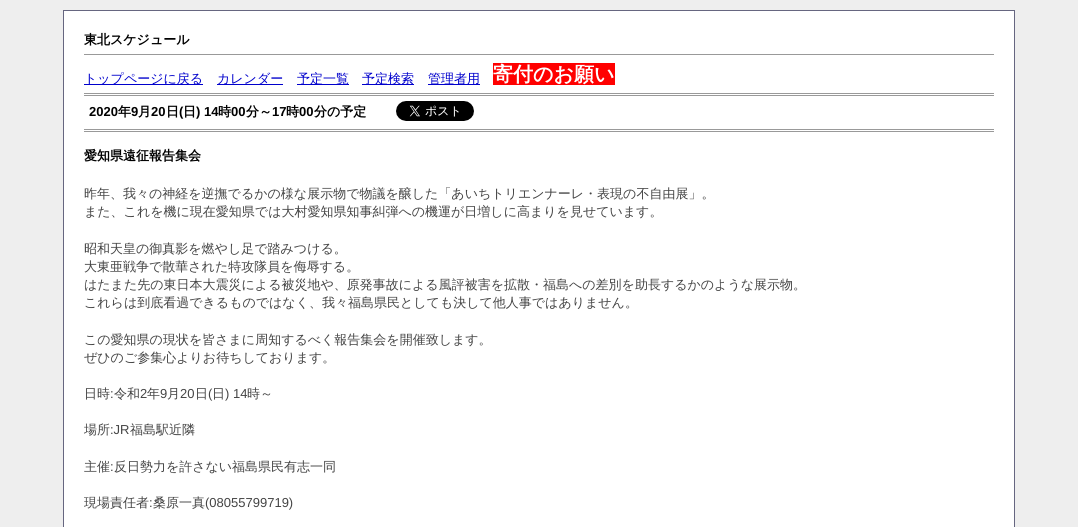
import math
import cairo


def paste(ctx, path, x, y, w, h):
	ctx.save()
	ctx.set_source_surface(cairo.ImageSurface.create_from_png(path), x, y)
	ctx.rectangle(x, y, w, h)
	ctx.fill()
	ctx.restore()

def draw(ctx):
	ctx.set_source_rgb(0.933, 0.933, 0.933)
	ctx.paint()
	ctx.set_source_rgb(1, 1, 1)
	ctx.rectangle(63.5, 10.5, 951, 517)
	ctx.fill_preserve()
	ctx.set_source_rgb(0.4, 0.4, 0.502)
	ctx.set_line_width(1)
	ctx.stroke()
	ctx.select_font_face('WenQuanYi Zen Hei', cairo.FONT_SLANT_NORMAL, cairo.FONT_WEIGHT_BOLD)
	ctx.set_font_size(13)
	ctx.set_source_rgb(0, 0, 0)
	ctx.move_to(84, 44)
	ctx.show_text('東北スケジュール')
	ctx.set_source_rgb(0.6, 0.6, 0.6)
	ctx.rectangle(84, 54, 910, 1)
	ctx.fill()
	ctx.set_source_rgb(0, 0, 0.8)
	ctx.rectangle(84, 84, 119, 1)
	ctx.fill()
	ctx.select_font_face('WenQuanYi Zen Hei Medium')
	ctx.move_to(84, 83)
	ctx.show_text('トップページに戻る')
	ctx.rectangle(217, 84, 66, 1)
	ctx.fill()
	ctx.move_to(217, 83)
	ctx.show_text('カレンダー')
	ctx.rectangle(297, 84, 52, 1)
	ctx.fill()
	ctx.move_to(297, 83)
	ctx.show_text('予定一覧')
	ctx.rectangle(362, 84, 52, 1)
	ctx.fill()
	ctx.move_to(362, 83)
	ctx.show_text('予定検索')
	ctx.rectangle(428, 84, 52, 1)
	ctx.fill()
	ctx.move_to(428, 83)
	ctx.show_text('管理者用')
	ctx.set_source_rgb(1, 0, 0)
	ctx.rectangle(493, 63, 122, 22)
	ctx.fill()
	ctx.select_font_face('WenQuanYi Zen Hei', cairo.FONT_SLANT_NORMAL, cairo.FONT_WEIGHT_BOLD)
	ctx.set_font_size(20)
	ctx.set_source_rgb(1, 1, 1)
	ctx.move_to(493, 81)
	ctx.show_text('寄付のお願い')
	ctx.set_source_rgb(0.6, 0.6, 0.6)
	ctx.rectangle(84, 93, 910, 1)
	ctx.rectangle(84, 95, 910, 1)
	ctx.rectangle(84, 129, 910, 1)
	ctx.rectangle(84, 131, 910, 1)
	ctx.fill()
	ctx.select_font_face('Liberation Sans', cairo.FONT_SLANT_NORMAL, cairo.FONT_WEIGHT_BOLD)
	ctx.set_font_size(13)
	ctx.set_source_rgb(0, 0, 0)
	ctx.move_to(89, 116)
	ctx.show_text('2020')
	ctx.select_font_face('WenQuanYi Zen Hei', cairo.FONT_SLANT_NORMAL, cairo.FONT_WEIGHT_BOLD)
	ctx.move_to(118, 116)
	ctx.show_text('年')
	ctx.select_font_face('Liberation Sans', cairo.FONT_SLANT_NORMAL, cairo.FONT_WEIGHT_BOLD)
	ctx.move_to(131, 116)
	ctx.show_text('9')
	ctx.select_font_face('WenQuanYi Zen Hei', cairo.FONT_SLANT_NORMAL, cairo.FONT_WEIGHT_BOLD)
	ctx.move_to(138, 116)
	ctx.show_text('月')
	ctx.select_font_face('Liberation Sans', cairo.FONT_SLANT_NORMAL, cairo.FONT_WEIGHT_BOLD)
	ctx.move_to(151, 116)
	ctx.show_text('20')
	ctx.select_font_face('WenQuanYi Zen Hei', cairo.FONT_SLANT_NORMAL, cairo.FONT_WEIGHT_BOLD)
	ctx.move_to(166, 116)
	ctx.show_text('日')
	ctx.select_font_face('Liberation Sans', cairo.FONT_SLANT_NORMAL, cairo.FONT_WEIGHT_BOLD)
	ctx.move_to(179, 116)
	ctx.show_text('(')
	ctx.select_font_face('WenQuanYi Zen Hei', cairo.FONT_SLANT_NORMAL, cairo.FONT_WEIGHT_BOLD)
	ctx.move_to(183, 116)
	ctx.show_text('日')
	ctx.select_font_face('Liberation Sans', cairo.FONT_SLANT_NORMAL, cairo.FONT_WEIGHT_BOLD)
	ctx.move_to(196, 116)
	ctx.show_text(') 14')
	ctx.select_font_face('WenQuanYi Zen Hei', cairo.FONT_SLANT_NORMAL, cairo.FONT_WEIGHT_BOLD)
	ctx.move_to(218, 116)
	ctx.show_text('時')
	ctx.select_font_face('Liberation Sans', cairo.FONT_SLANT_NORMAL, cairo.FONT_WEIGHT_BOLD)
	ctx.move_to(231, 116)
	ctx.show_text('00')
	ctx.select_font_face('WenQuanYi Zen Hei', cairo.FONT_SLANT_NORMAL, cairo.FONT_WEIGHT_BOLD)
	ctx.move_to(246, 116)
	ctx.show_text('分～')
	ctx.select_font_face('Liberation Sans', cairo.FONT_SLANT_NORMAL, cairo.FONT_WEIGHT_BOLD)
	ctx.move_to(272, 116)
	ctx.show_text('17')
	ctx.select_font_face('WenQuanYi Zen Hei', cairo.FONT_SLANT_NORMAL, cairo.FONT_WEIGHT_BOLD)
	ctx.move_to(286, 116)
	ctx.show_text('時')
	ctx.select_font_face('Liberation Sans', cairo.FONT_SLANT_NORMAL, cairo.FONT_WEIGHT_BOLD)
	ctx.move_to(299, 116)
	ctx.show_text('00')
	ctx.select_font_face('WenQuanYi Zen Hei', cairo.FONT_SLANT_NORMAL, cairo.FONT_WEIGHT_BOLD)
	ctx.move_to(314, 116)
	ctx.show_text('分の予定')
	paste(ctx, 'media/1.png', 396, 101, 78, 20)
	ctx.move_to(84, 160)
	ctx.show_text('愛知県遠征報告集会')
	ctx.select_font_face('WenQuanYi Zen Hei Medium')
	ctx.set_source_rgb(0.267, 0.267, 0.267)
	for x, y, s in [
		(84, 198, '昨年、我々の神経を逆撫でるかの様な展示物で物議を醸した「あいちトリエンナーレ・表現の不自由展」。'),
		(84, 216, 'また、これを機に現在愛知県では大村愛知県知事糾弾への機運が日増しに高まりを見せています。'),
		(84, 253, '昭和天皇の御真影を燃やし足で踏みつける。'),
		(84, 271, '大東亜戦争で散華された特攻隊員を侮辱する。'),
		(84, 289, 'はたまた先の東日本大震災による被災地や、原発事故による風評被害を拡散・福島への差別を助長するかのような展示物。'),
		(84, 307, 'これらは到底看過できるものではなく、我々福島県民としても決して他人事ではありません。'),
		(84, 344, 'この愛知県の現状を皆さまに周知するべく報告集会を開催致します。'),
		(84, 362, 'ぜひのご参集心よりお待ちしております。'),
		(84, 398, '日時 令和'),
	]:
		ctx.move_to(x, y)
		ctx.show_text(s)
	ctx.select_font_face('Liberation Sans')
	ctx.move_to(140, 398)
	ctx.show_text('2')
	ctx.select_font_face('WenQuanYi Zen Hei Medium')
	ctx.move_to(147, 398)
	ctx.show_text('年')
	ctx.select_font_face('Liberation Sans')
	ctx.move_to(160, 398)
	ctx.show_text('9')
	ctx.select_font_face('WenQuanYi Zen Hei Medium')
	ctx.move_to(167, 398)
	ctx.show_text('月')
	ctx.select_font_face('Liberation Sans')
	ctx.move_to(180, 398)
	ctx.show_text('20')
	ctx.select_font_face('WenQuanYi Zen Hei Medium')
	ctx.move_to(195, 398)
	ctx.show_text('日')
	ctx.select_font_face('Liberation Sans')
	ctx.move_to(208, 398)
	ctx.show_text('(')
	ctx.select_font_face('WenQuanYi Zen Hei Medium')
	ctx.move_to(212, 398)
	ctx.show_text('日')
	ctx.select_font_face('Liberation Sans')
	ctx.move_to(225, 398)
	ctx.show_text(') 14')
	ctx.select_font_face('WenQuanYi Zen Hei Medium')
	ctx.move_to(247, 398)
	ctx.show_text('時～')
	ctx.select_font_face('Liberation Sans')
	ctx.move_to(110, 398)
	ctx.show_text(':')
	ctx.select_font_face('WenQuanYi Zen Hei Medium')
	ctx.move_to(84, 434)
	ctx.show_text('場所')
	ctx.select_font_face('Liberation Sans')
	ctx.move_to(110, 434)
	ctx.show_text(':JR')
	ctx.select_font_face('WenQuanYi Zen Hei Medium')
	ctx.move_to(130, 434)
	ctx.show_text('福島駅近隣')
	ctx.move_to(84, 471)
	ctx.show_text('主催 反日勢力を許さない福島県民有志一同')
	ctx.select_font_face('Liberation Sans')
	ctx.move_to(110, 471)
	ctx.show_text(':')
	ctx.select_font_face('WenQuanYi Zen Hei Medium')
	ctx.move_to(84, 507)
	ctx.show_text('現場責任者 桑原一真')
	ctx.select_font_face('Liberation Sans')
	ctx.move_to(205, 507)
	ctx.show_text('(08055799719)')
	ctx.move_to(149, 507)
	ctx.show_text(':')


surface = cairo.ImageSurface(cairo.FORMAT_RGB24, 1078, 527)
ctx = cairo.Context(surface)
options = cairo.FontOptions()
options.set_hint_metrics(cairo.HINT_METRICS_OFF)
options.set_hint_style(cairo.HINT_STYLE_NONE)
ctx.set_font_options(options)
ctx.set_miter_limit(4)
draw(ctx)
surface.write_to_png('image.png')
